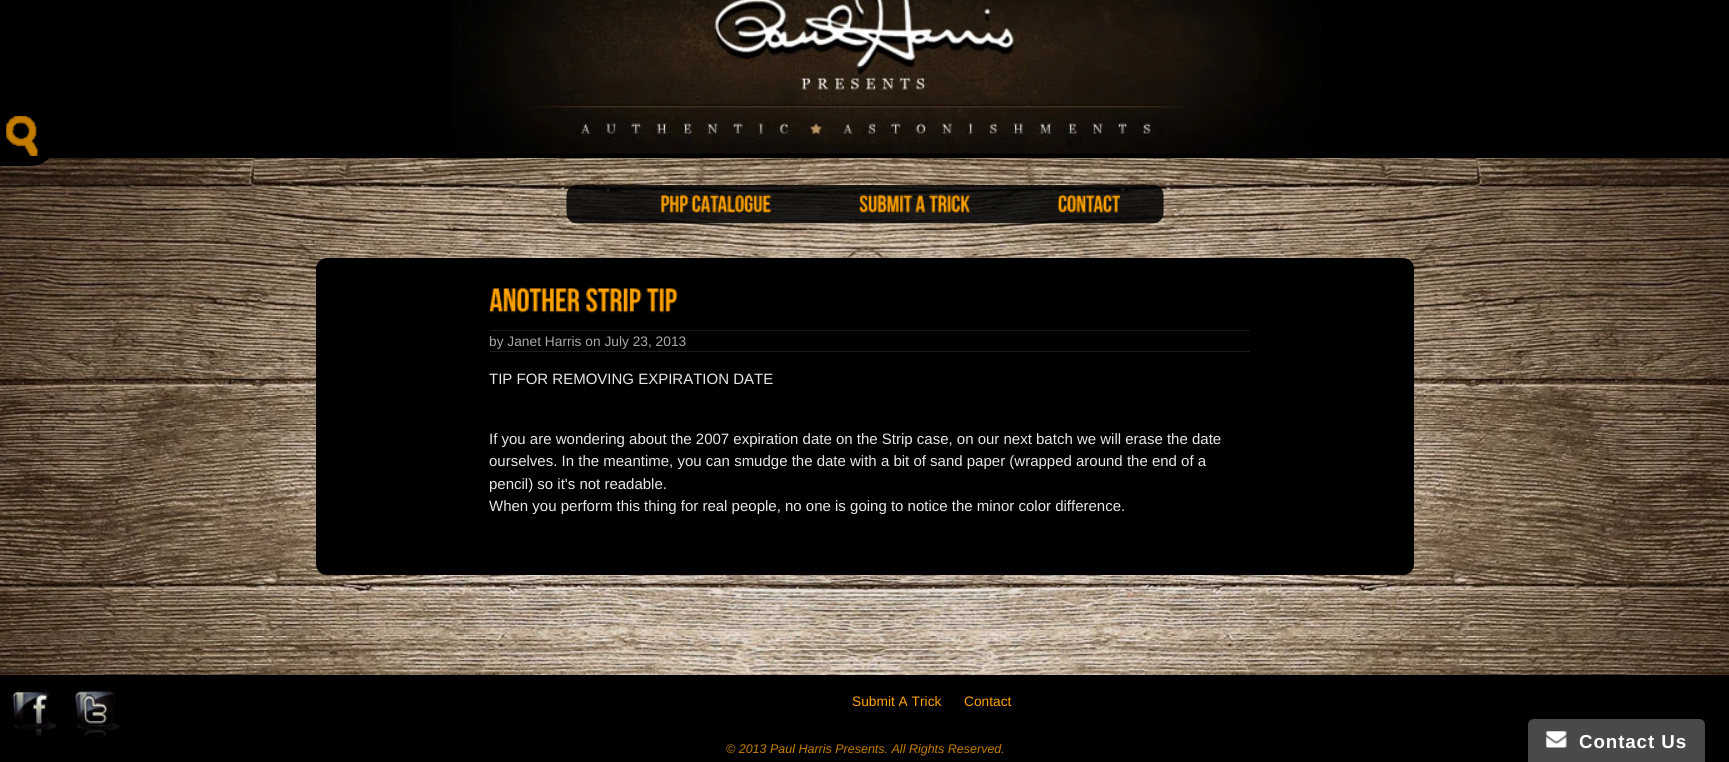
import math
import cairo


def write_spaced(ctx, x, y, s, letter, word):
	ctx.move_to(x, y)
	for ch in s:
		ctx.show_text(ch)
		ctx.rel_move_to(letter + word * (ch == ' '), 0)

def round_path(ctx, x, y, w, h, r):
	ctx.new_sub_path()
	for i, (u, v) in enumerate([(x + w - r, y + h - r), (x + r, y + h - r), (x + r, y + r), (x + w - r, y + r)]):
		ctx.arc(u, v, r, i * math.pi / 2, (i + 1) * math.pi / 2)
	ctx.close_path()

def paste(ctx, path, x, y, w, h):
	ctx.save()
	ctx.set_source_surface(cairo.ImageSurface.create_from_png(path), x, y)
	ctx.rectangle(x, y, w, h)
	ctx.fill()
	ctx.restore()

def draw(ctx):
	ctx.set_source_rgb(1, 1, 1)
	ctx.paint()
	paste(ctx, 'media/1.png', 0, 158, 1729, 517)
	ctx.set_source_rgb(0, 0, 0)
	ctx.rectangle(0, 0, 1729, 158)
	ctx.fill()
	paste(ctx, 'media/2.png', 452, 0, 870, 154)
	paste(ctx, 'media/3.png', 566, 185, 598, 39)
	paste(ctx, 'media/4.png', 661, 194, 28, 19)
	paste(ctx, 'media/5.png', 691, 194, 81, 19)
	paste(ctx, 'media/6.png', 859, 194, 54, 19)
	paste(ctx, 'media/7.png', 915, 194, 11, 19)
	paste(ctx, 'media/8.png', 928, 194, 43, 19)
	paste(ctx, 'media/9.png', 1057, 194, 64, 19)
	ctx.new_path()
	ctx.move_to(0, 110)
	ctx.line_to(31, 110)
	ctx.curve_to(45, 110, 56, 121, 56, 135)
	ctx.line_to(56, 141)
	ctx.curve_to(56, 155, 45, 166, 31, 166)
	ctx.line_to(0, 166)
	ctx.close_path()
	ctx.fill()
	paste(ctx, 'media/10.png', 6, 116, 32, 40)
	round_path(ctx, 316, 258, 1098, 317, 11)
	ctx.fill()
	paste(ctx, 'media/11.png', 489, 287, 92, 26)
	paste(ctx, 'media/12.png', 586, 287, 56, 26)
	paste(ctx, 'media/13.png', 646, 288, 32, 25)
	ctx.set_source_rgb(0.102, 0.102, 0.102)
	ctx.rectangle(490, 330, 760, 1)
	ctx.fill()
	ctx.rectangle(490, 351, 760, 1)
	ctx.fill()
	ctx.select_font_face('Liberation Sans')
	ctx.set_font_size(13.75)
	ctx.set_source_rgb(0.663, 0.663, 0.663)
	ctx.move_to(489, 346)
	ctx.show_text('by Janet Harris on July 23, 2013')
	ctx.set_font_size(15)
	ctx.set_source_rgb(0.91, 0.91, 0.91)
	for x, y, s in [
		(489, 384, 'TIP FOR REMOVING EXPIRATION DATE'),
		(489, 444, 'If you are wondering about the 2007 expiration date on the Strip case, on our next batch we will erase the date'),
		(489, 466, 'ourselves. In the meantime, you can smudge the date with a bit of sand paper (wrapped around the end of a'),
		(489, 489, 'pencil) so it\'s not readable.'),
		(489, 511, 'When you perform this thing for real people, no one is going to notice the minor color difference.'),
	]:
		ctx.move_to(x, y)
		ctx.show_text(s)
	ctx.set_source_rgb(0, 0, 0)
	ctx.rectangle(0, 675, 1729, 87)
	ctx.fill()
	paste(ctx, 'media/14.png', 12, 688, 45, 49)
	paste(ctx, 'media/15.png', 75, 688, 45, 49)
	ctx.set_font_size(13.75)
	ctx.set_source_rgb(1, 0.635, 0)
	ctx.move_to(852, 706)
	ctx.show_text('Submit A Trick')
	ctx.move_to(964, 706)
	ctx.show_text('Contact')
	ctx.select_font_face('Liberation Sans', cairo.FONT_SLANT_ITALIC)
	ctx.set_font_size(12.5)
	ctx.set_source_rgb(0.773, 0.49, 0)
	ctx.move_to(726, 753)
	ctx.show_text('© 2013 Paul Harris Presents. All Rights Reserved.')
	ctx.set_source_rgb(0.286, 0.286, 0.286)
	ctx.new_path()
	ctx.move_to(1534, 719)
	ctx.line_to(1699, 719)
	ctx.curve_to(1702.5, 719, 1705, 721.5, 1705, 725)
	ctx.line_to(1705, 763)
	ctx.line_to(1528, 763)
	ctx.line_to(1528, 725)
	ctx.curve_to(1528, 721.5, 1530.5, 719, 1534, 719)
	ctx.close_path()
	ctx.fill()
	paste(ctx, 'media/16.png', 1546, 731, 21, 17)
	ctx.select_font_face('Liberation Sans', cairo.FONT_SLANT_NORMAL, cairo.FONT_WEIGHT_BOLD)
	ctx.set_font_size(18.75)
	ctx.set_source_rgb(1, 1, 1)
	write_spaced(ctx, 1579, 748, 'Contact Us', 0.9, 0)


surface = cairo.ImageSurface(cairo.FORMAT_RGB24, 1729, 762)
ctx = cairo.Context(surface)
options = cairo.FontOptions()
options.set_hint_metrics(cairo.HINT_METRICS_OFF)
options.set_hint_style(cairo.HINT_STYLE_NONE)
ctx.set_font_options(options)
ctx.set_miter_limit(4)
draw(ctx)
surface.write_to_png('image.png')
